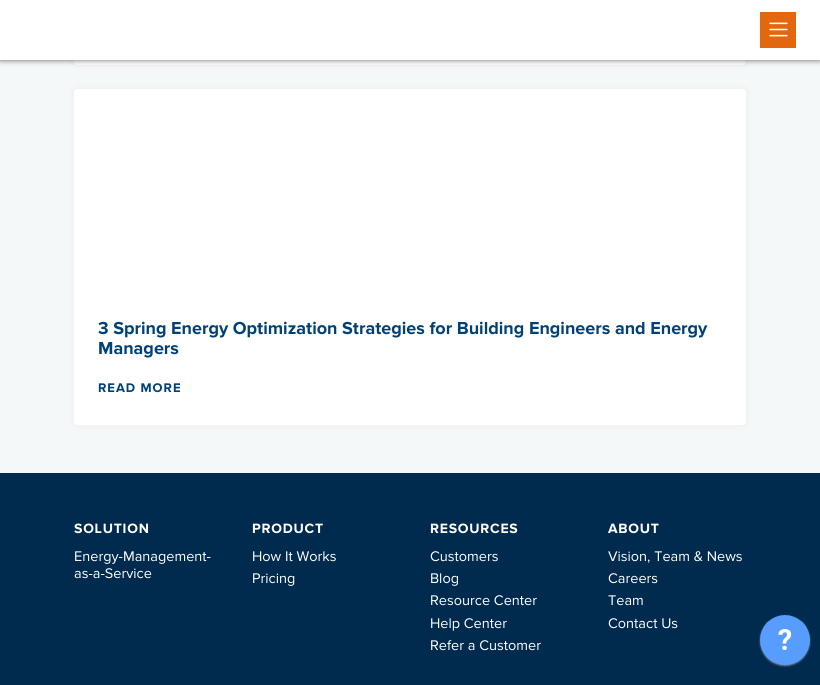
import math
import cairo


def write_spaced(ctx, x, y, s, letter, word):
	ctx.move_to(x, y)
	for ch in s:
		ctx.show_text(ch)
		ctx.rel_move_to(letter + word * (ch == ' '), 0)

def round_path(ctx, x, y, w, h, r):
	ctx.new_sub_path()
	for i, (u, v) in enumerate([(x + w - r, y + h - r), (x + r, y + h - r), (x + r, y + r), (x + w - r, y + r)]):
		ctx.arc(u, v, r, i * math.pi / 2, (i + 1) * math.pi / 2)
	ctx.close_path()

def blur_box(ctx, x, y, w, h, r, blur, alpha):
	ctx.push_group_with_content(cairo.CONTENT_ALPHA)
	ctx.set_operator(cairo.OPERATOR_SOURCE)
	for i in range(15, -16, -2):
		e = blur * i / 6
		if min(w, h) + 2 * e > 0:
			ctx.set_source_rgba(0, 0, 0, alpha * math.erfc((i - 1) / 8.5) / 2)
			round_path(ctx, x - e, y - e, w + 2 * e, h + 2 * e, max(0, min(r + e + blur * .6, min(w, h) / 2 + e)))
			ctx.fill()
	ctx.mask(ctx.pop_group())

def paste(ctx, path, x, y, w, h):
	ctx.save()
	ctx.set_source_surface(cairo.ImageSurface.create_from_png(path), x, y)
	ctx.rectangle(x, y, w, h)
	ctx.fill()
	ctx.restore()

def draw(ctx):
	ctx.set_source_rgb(0.957, 0.969, 0.976)
	ctx.paint()
	ctx.set_source_rgb(0, 0, 0)
	blur_box(ctx, 74, -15, 672, 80, 3, 4, 0.05)
	ctx.set_source_rgb(1, 1, 1)
	round_path(ctx, 74, -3, 672, 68, 3)
	ctx.fill()
	ctx.set_source_rgb(0, 0, 0)
	blur_box(ctx, 0, 0, 820, 60, 0, 3, 0.6)
	ctx.set_source_rgb(1, 1, 1)
	ctx.rectangle(0, 0, 820, 60)
	ctx.fill()
	ctx.set_source_rgb(0.886, 0.404, 0.059)
	ctx.rectangle(760, 12, 36, 36)
	ctx.fill()
	paste(ctx, 'media/1.png', 769, 22, 19, 15)
	ctx.set_source_rgb(0, 0, 0)
	blur_box(ctx, 74, 89, 672, 336, 3, 4, 0.05)
	ctx.set_source_rgb(1, 1, 1)
	round_path(ctx, 74, 89, 672, 336, 3)
	ctx.fill()
	ctx.select_font_face('Proxima Nova', cairo.FONT_SLANT_NORMAL, cairo.FONT_WEIGHT_BOLD)
	ctx.set_font_size(18)
	ctx.set_source_rgb(0, 0.255, 0.467)
	ctx.move_to(98, 334)
	ctx.show_text('3 Spring Energy Optimization Strategies for Building Engineers and Energy')
	ctx.move_to(98, 354)
	ctx.show_text('Managers')
	ctx.set_font_size(13)
	write_spaced(ctx, 98, 392, 'READ MORE', 1, 0)
	ctx.set_source_rgb(0, 0.169, 0.306)
	ctx.rectangle(0, 473, 820, 212)
	ctx.fill()
	ctx.set_font_size(14)
	ctx.set_source_rgb(1, 1, 1)
	write_spaced(ctx, 74, 533, 'SOLUTION', 0.75, 0)
	ctx.select_font_face('Proxima Nova')
	ctx.set_font_size(14.5)
	ctx.move_to(74, 561)
	ctx.show_text('Energy-Management-')
	ctx.move_to(74, 578)
	ctx.show_text('as-a-Service')
	ctx.select_font_face('Proxima Nova', cairo.FONT_SLANT_NORMAL, cairo.FONT_WEIGHT_BOLD)
	ctx.set_font_size(14)
	write_spaced(ctx, 252, 533, 'PRODUCT', 0.75, 0)
	ctx.select_font_face('Proxima Nova')
	ctx.set_font_size(14.5)
	ctx.move_to(252, 561)
	ctx.show_text('How It Works')
	ctx.move_to(252, 583)
	ctx.show_text('Pricing')
	ctx.select_font_face('Proxima Nova', cairo.FONT_SLANT_NORMAL, cairo.FONT_WEIGHT_BOLD)
	ctx.set_font_size(14)
	write_spaced(ctx, 430, 533, 'RESOURCES', 0.75, 0)
	ctx.select_font_face('Proxima Nova')
	ctx.set_font_size(14.5)
	for x, y, s in [
		(430, 561, 'Customers'),
		(430, 583, 'Blog'),
		(430, 605, 'Resource Center'),
		(430, 628, 'Help Center'),
		(430, 650, 'Refer a Customer'),
	]:
		ctx.move_to(x, y)
		ctx.show_text(s)
	ctx.select_font_face('Proxima Nova', cairo.FONT_SLANT_NORMAL, cairo.FONT_WEIGHT_BOLD)
	ctx.set_font_size(14)
	write_spaced(ctx, 608, 533, 'ABOUT', 0.75, 0)
	ctx.select_font_face('Proxima Nova')
	ctx.set_font_size(14.5)
	for x, y, s in [
		(608, 561, 'Vision, Team & News'),
		(608, 583, 'Careers'),
		(608, 605, 'Team'),
		(608, 628, 'Contact Us'),
	]:
		ctx.move_to(x, y)
		ctx.show_text(s)
	paste(ctx, 'media/2.png', 758, 614, 54, 54)


surface = cairo.ImageSurface(cairo.FORMAT_RGB24, 820, 685)
ctx = cairo.Context(surface)
options = cairo.FontOptions()
options.set_hint_metrics(cairo.HINT_METRICS_OFF)
options.set_hint_style(cairo.HINT_STYLE_NONE)
ctx.set_font_options(options)
ctx.set_miter_limit(4)
draw(ctx)
surface.write_to_png('image.png')
